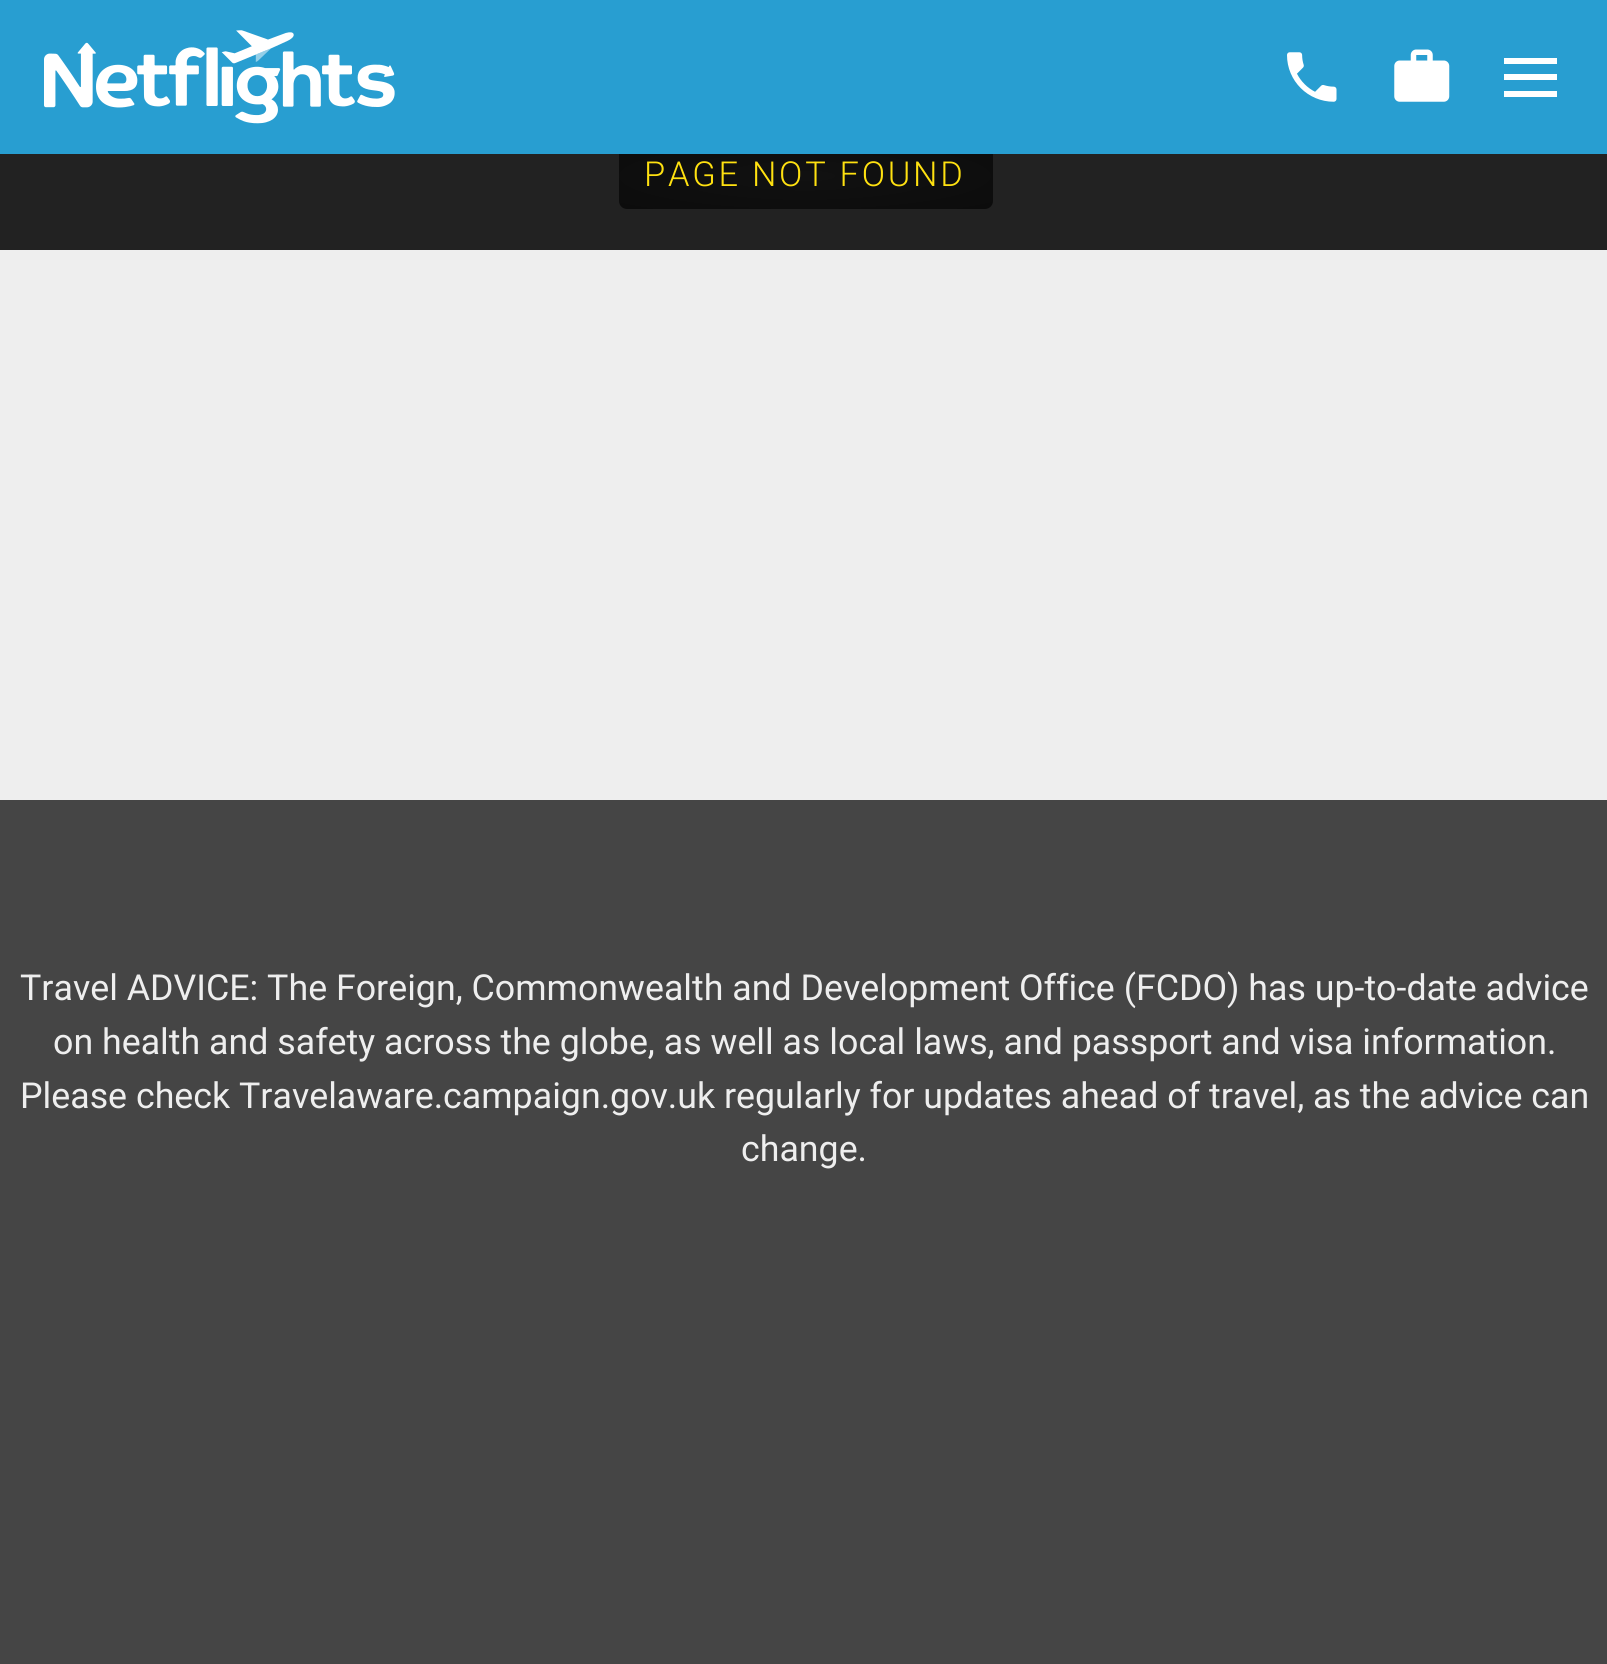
import math
import cairo


def write_spaced(ctx, x, y, s, letter, word):
	ctx.move_to(x, y)
	for ch in s:
		ctx.show_text(ch)
		ctx.rel_move_to(letter + word * (ch == ' '), 0)

def round_path(ctx, x, y, w, h, r):
	ctx.new_sub_path()
	for i, (u, v) in enumerate([(x + w - r, y + h - r), (x + r, y + h - r), (x + r, y + r), (x + w - r, y + r)]):
		ctx.arc(u, v, r, i * math.pi / 2, (i + 1) * math.pi / 2)
	ctx.close_path()

def paste(ctx, path, x, y, w, h):
	ctx.save()
	ctx.set_source_surface(cairo.ImageSurface.create_from_png(path), x, y)
	ctx.rectangle(x, y, w, h)
	ctx.fill()
	ctx.restore()

def draw(ctx):
	ctx.set_source_rgb(0.933, 0.933, 0.933)
	ctx.paint()
	ctx.set_source_rgb(0.133, 0.133, 0.133)
	ctx.rectangle(0, 154, 1607, 96)
	ctx.fill()
	gradient = cairo.RadialGradient(0, 0, 0, 0, 0, 1)
	gradient.set_matrix(cairo.Matrix(1 / 264, 0, 0, 1 / 47, -1 * 805 / 264, -1 * 176 / 47))
	gradient.add_color_stop_rgba(0, 0.067, 0.067, 0.067, 1)
	gradient.add_color_stop_rgba(1, 0.047, 0.047, 0.047, 1)
	ctx.set_source(gradient)
	round_path(ctx, 619, 143, 374, 66, 8)
	ctx.fill()
	ctx.set_source_rgb(0.157, 0.62, 0.82)
	ctx.rectangle(0, 0, 1607, 154)
	ctx.fill()
	paste(ctx, 'media/1.png', 44, 30, 351, 94)
	paste(ctx, 'media/2.png', 1287, 52, 50, 50)
	paste(ctx, 'media/3.png', 1394, 49, 56, 53)
	ctx.set_source_rgb(1, 1, 1)
	ctx.rectangle(1504, 58, 53, 6)
	ctx.rectangle(1504, 74, 53, 6)
	ctx.rectangle(1504, 91, 53, 6)
	ctx.fill()
	ctx.select_font_face('Roboto Light')
	ctx.set_font_size(34.4)
	ctx.set_source_rgb(1, 0.882, 0.063)
	write_spaced(ctx, 644, 186, 'PAGE NOT FOUND', 2.75, 0)
	ctx.set_source_rgb(0.271, 0.271, 0.271)
	ctx.rectangle(0, 800, 1607, 864)
	ctx.fill()
	ctx.select_font_face('Roboto')
	ctx.set_font_size(35.75)
	ctx.set_source_rgb(0.933, 0.933, 0.933)
	for x, y, s in [
		(20, 1000, 'Travel ADVICE: The Foreign, Commonwealth and Development Office (FCDO) has up-to-date advice'),
		(53, 1054, 'on health and safety across the globe, as well as local laws, and passport and visa information.'),
		(20, 1108, 'Please check Travelaware.campaign.gov.uk regularly for updates ahead of travel, as the advice can'),
		(741, 1161, 'change.'),
	]:
		ctx.move_to(x, y)
		ctx.show_text(s)


surface = cairo.ImageSurface(cairo.FORMAT_RGB24, 1607, 1664)
ctx = cairo.Context(surface)
options = cairo.FontOptions()
options.set_hint_metrics(cairo.HINT_METRICS_OFF)
options.set_hint_style(cairo.HINT_STYLE_NONE)
ctx.set_font_options(options)
ctx.set_miter_limit(4)
draw(ctx)
surface.write_to_png('image.png')
